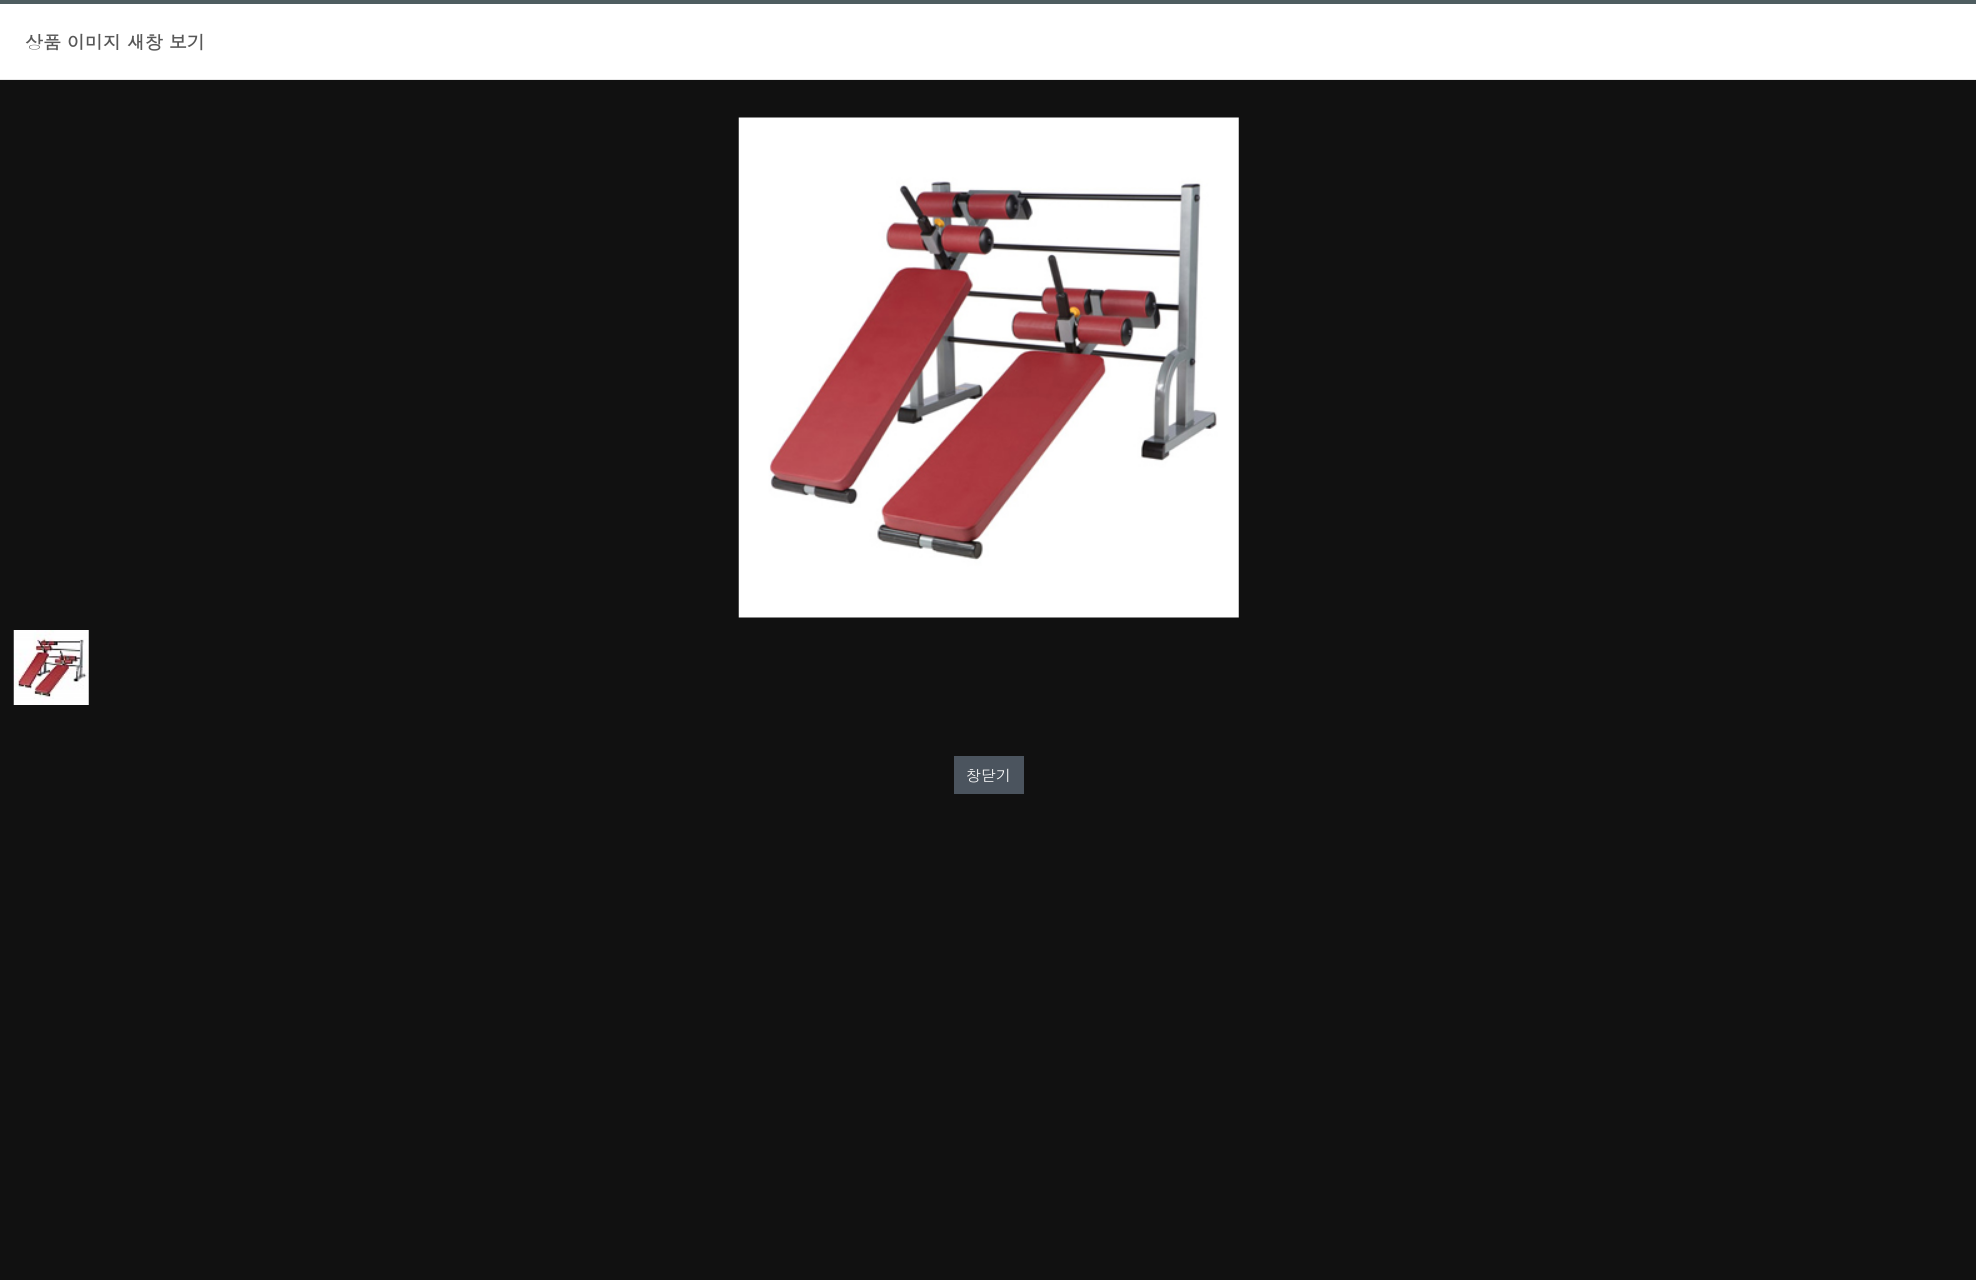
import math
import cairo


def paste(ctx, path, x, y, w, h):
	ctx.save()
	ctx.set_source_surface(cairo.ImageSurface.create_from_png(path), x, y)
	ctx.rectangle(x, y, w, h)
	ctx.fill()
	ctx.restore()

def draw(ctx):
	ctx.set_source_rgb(0.067, 0.067, 0.067)
	ctx.paint()
	ctx.set_source_rgb(1, 1, 1)
	ctx.rectangle(0, 4, 1976, 75)
	ctx.fill()
	ctx.set_source_rgb(0.306, 0.365, 0.376)
	ctx.rectangle(0, 0, 1976, 4)
	ctx.fill()
	ctx.set_source_rgb(0.914, 0.914, 0.914)
	ctx.rectangle(0, 79, 1976, 1)
	ctx.fill()
	ctx.select_font_face('Dotum', cairo.FONT_SLANT_NORMAL, cairo.FONT_WEIGHT_BOLD)
	ctx.set_font_size(18)
	ctx.set_source_rgb(0.345, 0.345, 0.345)
	ctx.move_to(25, 49)
	ctx.show_text('상품 이미지 새창 보기')
	paste(ctx, 'media/1.png', 738, 117, 501, 501)
	paste(ctx, 'media/2.png', 13, 630, 76, 75)
	ctx.set_source_rgb(0.294, 0.329, 0.369)
	ctx.rectangle(954, 756, 70, 38)
	ctx.fill()
	ctx.select_font_face('Dotum')
	ctx.set_font_size(15)
	ctx.set_source_rgb(1, 1, 1)
	ctx.move_to(966, 781)
	ctx.show_text('창닫기')


surface = cairo.ImageSurface(cairo.FORMAT_RGB24, 1976, 1280)
ctx = cairo.Context(surface)
options = cairo.FontOptions()
options.set_hint_metrics(cairo.HINT_METRICS_OFF)
options.set_hint_style(cairo.HINT_STYLE_NONE)
ctx.set_font_options(options)
ctx.set_miter_limit(4)
draw(ctx)
surface.write_to_png('image.png')
